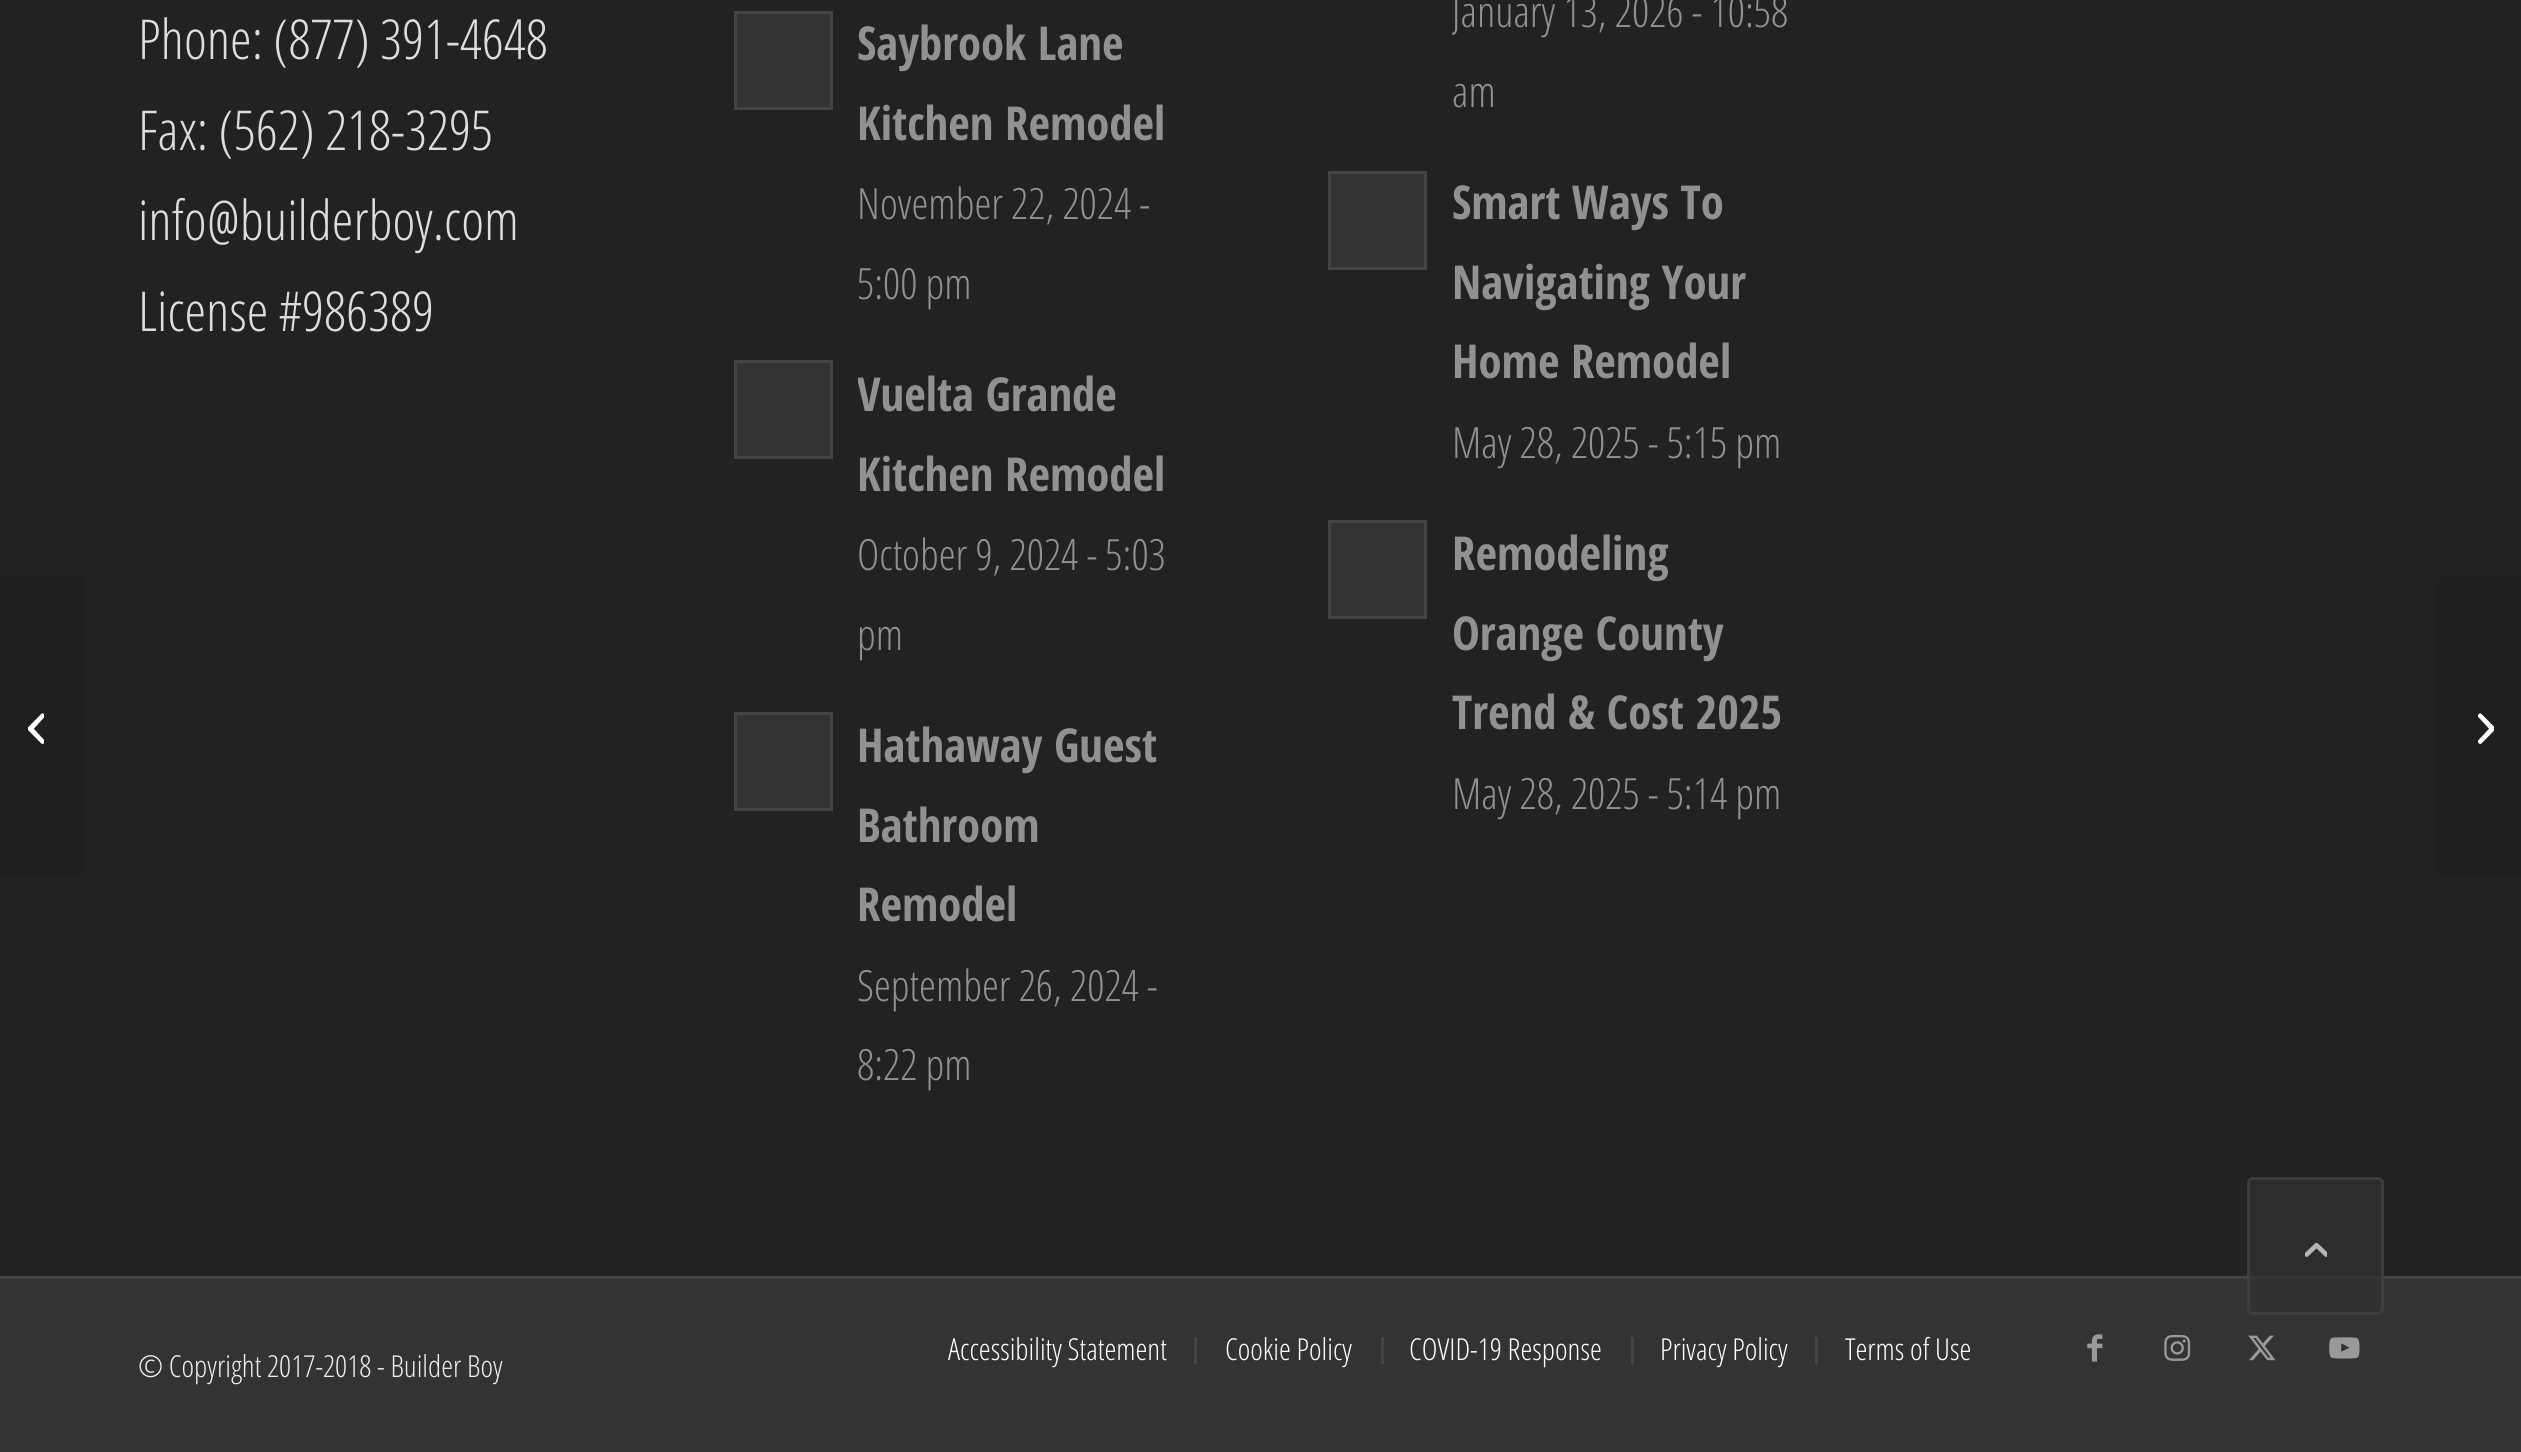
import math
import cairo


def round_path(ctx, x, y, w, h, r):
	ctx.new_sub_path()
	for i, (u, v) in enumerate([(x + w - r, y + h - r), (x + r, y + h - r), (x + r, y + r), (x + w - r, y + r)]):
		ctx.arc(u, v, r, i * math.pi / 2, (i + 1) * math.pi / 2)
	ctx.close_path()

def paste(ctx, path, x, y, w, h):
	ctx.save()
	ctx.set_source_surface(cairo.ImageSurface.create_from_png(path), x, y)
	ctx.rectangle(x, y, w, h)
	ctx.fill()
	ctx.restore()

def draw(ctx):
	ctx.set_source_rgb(0.133, 0.133, 0.133)
	ctx.paint()
	ctx.set_source_rgb(0.122, 0.122, 0.122)
	ctx.new_path()
	ctx.move_to(0, 575)
	ctx.line_to(74, 575)
	ctx.curve_to(80, 575, 85, 580, 85, 586)
	ctx.line_to(85, 866)
	ctx.curve_to(85, 872, 80, 877, 74, 877)
	ctx.line_to(0, 877)
	ctx.close_path()
	ctx.fill()
	paste(ctx, 'media/1.png', 28, 713, 16, 31)
	ctx.select_font_face('Open Sans Condensed Light')
	ctx.set_font_size(55)
	ctx.set_source_rgb(0.867, 0.867, 0.867)
	for x, y, s in [
		(138, 59, 'Phone: (877) 391-4648'),
		(138, 150, 'Fax: (562) 218-3295'),
		(138, 240, 'info@builderboy.com'),
		(138, 331, 'License #986389'),
	]:
		ctx.move_to(x, y)
		ctx.show_text(s)
	ctx.set_source_rgb(0.2, 0.2, 0.2)
	ctx.rectangle(735.5, 12.5, 96, 96)
	ctx.fill_preserve()
	ctx.set_source_rgb(0.267, 0.267, 0.267)
	ctx.set_line_width(3)
	ctx.stroke()
	ctx.select_font_face('Open Sans Condensed', cairo.FONT_SLANT_NORMAL, cairo.FONT_WEIGHT_BOLD)
	ctx.set_font_size(46.75)
	ctx.set_source_rgb(0.569, 0.569, 0.569)
	ctx.move_to(857, 60)
	ctx.show_text('Saybrook Lane')
	ctx.move_to(857, 140)
	ctx.show_text('Kitchen Remodel')
	ctx.select_font_face('Open Sans Condensed Light')
	ctx.set_font_size(43)
	ctx.move_to(857, 219)
	ctx.show_text('November 22, 2024 -')
	ctx.move_to(857, 299)
	ctx.show_text('5:00 pm')
	ctx.set_source_rgb(0.2, 0.2, 0.2)
	ctx.rectangle(735.5, 361.5, 96, 96)
	ctx.fill_preserve()
	ctx.set_source_rgb(0.267, 0.267, 0.267)
	ctx.stroke()
	ctx.save()
	ctx.rectangle(858, 355, 336, 319)
	ctx.clip()
	ctx.select_font_face('Open Sans Condensed', cairo.FONT_SLANT_NORMAL, cairo.FONT_WEIGHT_BOLD)
	ctx.set_font_size(46.75)
	ctx.set_source_rgb(0.569, 0.569, 0.569)
	ctx.move_to(857, 411)
	ctx.show_text('Vuelta Grande')
	ctx.restore()
	ctx.select_font_face('Open Sans Condensed', cairo.FONT_SLANT_NORMAL, cairo.FONT_WEIGHT_BOLD)
	ctx.set_font_size(46.75)
	ctx.set_source_rgb(0.569, 0.569, 0.569)
	ctx.move_to(857, 491)
	ctx.show_text('Kitchen Remodel')
	ctx.select_font_face('Open Sans Condensed Light')
	ctx.set_font_size(43)
	ctx.move_to(857, 570)
	ctx.show_text('October 9, 2024 - 5:03')
	ctx.move_to(857, 650)
	ctx.show_text('pm')
	ctx.set_source_rgb(0.2, 0.2, 0.2)
	ctx.rectangle(735.5, 713.5, 96, 96)
	ctx.fill_preserve()
	ctx.set_source_rgb(0.267, 0.267, 0.267)
	ctx.stroke()
	ctx.select_font_face('Open Sans Condensed', cairo.FONT_SLANT_NORMAL, cairo.FONT_WEIGHT_BOLD)
	ctx.set_font_size(46.75)
	ctx.set_source_rgb(0.569, 0.569, 0.569)
	for x, y, s in [
		(857, 762, 'Hathaway Guest'),
		(857, 842, 'Bathroom'),
		(857, 921, 'Remodel'),
	]:
		ctx.move_to(x, y)
		ctx.show_text(s)
	ctx.select_font_face('Open Sans Condensed Light')
	ctx.set_font_size(43)
	ctx.move_to(857, 1001)
	ctx.show_text('September 26, 2024 -')
	ctx.move_to(857, 1080)
	ctx.show_text('8:22 pm')
	ctx.save()
	ctx.rectangle(1452, 0, 336, 132)
	ctx.clip()
	ctx.move_to(1452, 27)
	ctx.show_text('January 13, 2026 - 10:58')
	ctx.restore()
	ctx.move_to(1452, 107)
	ctx.show_text('am')
	ctx.set_source_rgb(0.2, 0.2, 0.2)
	ctx.rectangle(1329.5, 172.5, 96, 96)
	ctx.fill_preserve()
	ctx.set_source_rgb(0.267, 0.267, 0.267)
	ctx.stroke()
	ctx.select_font_face('Open Sans Condensed', cairo.FONT_SLANT_NORMAL, cairo.FONT_WEIGHT_BOLD)
	ctx.set_font_size(46.75)
	ctx.set_source_rgb(0.569, 0.569, 0.569)
	for x, y, s in [
		(1452, 219, 'Smart Ways To'),
		(1452, 299, 'Navigating Your'),
		(1452, 378, 'Home Remodel'),
	]:
		ctx.move_to(x, y)
		ctx.show_text(s)
	ctx.select_font_face('Open Sans Condensed Light')
	ctx.set_font_size(43)
	ctx.move_to(1452, 458)
	ctx.show_text('May 28, 2025 - 5:15 pm')
	ctx.set_source_rgb(0.2, 0.2, 0.2)
	ctx.rectangle(1329.5, 521.5, 96, 96)
	ctx.fill_preserve()
	ctx.set_source_rgb(0.267, 0.267, 0.267)
	ctx.stroke()
	ctx.select_font_face('Open Sans Condensed', cairo.FONT_SLANT_NORMAL, cairo.FONT_WEIGHT_BOLD)
	ctx.set_font_size(46.75)
	ctx.set_source_rgb(0.569, 0.569, 0.569)
	for x, y, s in [
		(1452, 570, 'Remodeling'),
		(1452, 650, 'Orange County'),
		(1452, 729, 'Trend & Cost 2025'),
	]:
		ctx.move_to(x, y)
		ctx.show_text(s)
	ctx.select_font_face('Open Sans Condensed Light')
	ctx.set_font_size(43)
	ctx.move_to(1452, 809)
	ctx.show_text('May 28, 2025 - 5:14 pm')
	ctx.set_source_rgb(0.2, 0.2, 0.2)
	ctx.rectangle(0, 1279, 2521, 173)
	ctx.fill()
	ctx.set_source_rgb(0.267, 0.267, 0.267)
	ctx.rectangle(0, 1276, 2521, 3)
	ctx.fill()
	ctx.set_font_size(30.25)
	ctx.set_source_rgb(0.933, 0.933, 0.933)
	ctx.move_to(138, 1377)
	ctx.show_text('© Copyright 2017-2018 - Builder Boy')
	ctx.set_source_rgb(1, 1, 1)
	ctx.move_to(948, 1360)
	ctx.show_text('Accessibility Statement')
	ctx.set_source_rgb(0.267, 0.267, 0.267)
	ctx.rectangle(1194, 1337, 3, 27)
	ctx.fill()
	ctx.set_source_rgb(1, 1, 1)
	ctx.move_to(1225, 1360)
	ctx.show_text('Cookie Policy')
	ctx.set_source_rgb(0.267, 0.267, 0.267)
	ctx.rectangle(1381, 1337, 3, 27)
	ctx.fill()
	ctx.set_source_rgb(1, 1, 1)
	ctx.move_to(1409, 1360)
	ctx.show_text('COVID-19 Response')
	ctx.set_source_rgb(0.267, 0.267, 0.267)
	ctx.rectangle(1631, 1337, 3, 27)
	ctx.fill()
	ctx.set_source_rgb(1, 1, 1)
	ctx.move_to(1660, 1360)
	ctx.show_text('Privacy Policy')
	ctx.set_source_rgb(0.267, 0.267, 0.267)
	ctx.rectangle(1815, 1337, 3, 27)
	ctx.fill()
	ctx.set_source_rgb(1, 1, 1)
	ctx.move_to(1845, 1360)
	ctx.show_text('Terms of Use')
	paste(ctx, 'media/2.png', 2087, 1334, 16, 28)
	paste(ctx, 'media/3.png', 2164, 1334, 27, 27)
	paste(ctx, 'media/4.png', 2248, 1335, 28, 26)
	paste(ctx, 'media/5.png', 2329, 1337, 31, 22)
	ctx.set_source_rgb(0.122, 0.122, 0.122)
	ctx.new_path()
	ctx.move_to(2448, 575)
	ctx.line_to(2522, 575)
	ctx.line_to(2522, 877)
	ctx.line_to(2448, 877)
	ctx.curve_to(2442, 877, 2437, 872, 2437, 866)
	ctx.line_to(2437, 586)
	ctx.curve_to(2437, 580, 2442, 575, 2448, 575)
	ctx.close_path()
	ctx.fill()
	paste(ctx, 'media/6.png', 2478, 713, 16, 31)
	ctx.set_source_rgba(0.2, 0.2, 0.2, 0.7)
	round_path(ctx, 2247, 1177, 137, 138, 6)
	ctx.fill()
	round_path(ctx, 2248.5, 1178.5, 134, 135, 4.5)
	ctx.set_source_rgba(0.267, 0.267, 0.267, 0.7)
	ctx.stroke()
	paste(ctx, 'media/7.png', 2305, 1242, 22, 15)


surface = cairo.ImageSurface(cairo.FORMAT_RGB24, 2521, 1452)
ctx = cairo.Context(surface)
options = cairo.FontOptions()
options.set_hint_metrics(cairo.HINT_METRICS_OFF)
options.set_hint_style(cairo.HINT_STYLE_NONE)
ctx.set_font_options(options)
ctx.set_miter_limit(4)
draw(ctx)
surface.write_to_png('image.png')
